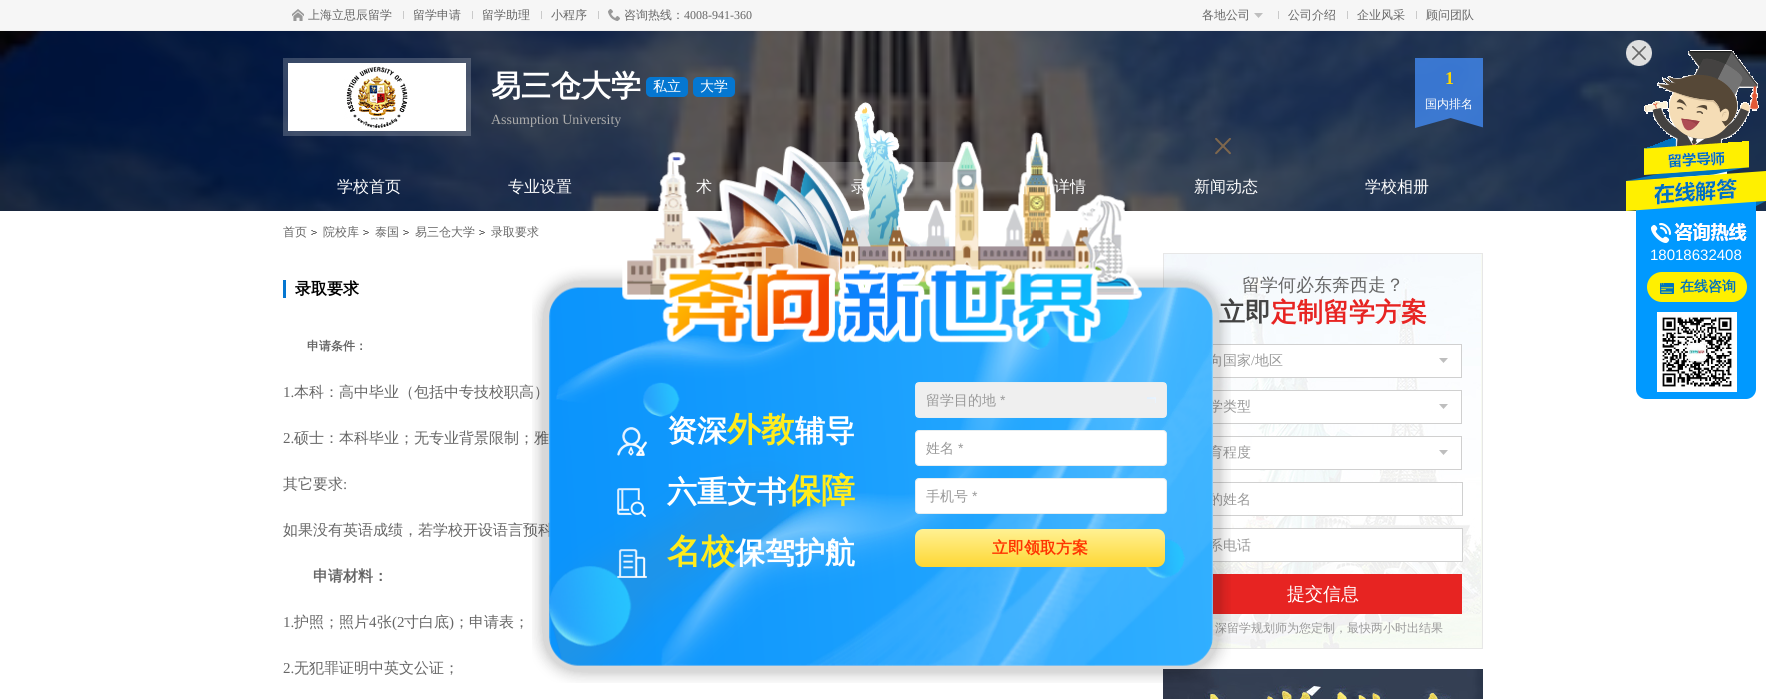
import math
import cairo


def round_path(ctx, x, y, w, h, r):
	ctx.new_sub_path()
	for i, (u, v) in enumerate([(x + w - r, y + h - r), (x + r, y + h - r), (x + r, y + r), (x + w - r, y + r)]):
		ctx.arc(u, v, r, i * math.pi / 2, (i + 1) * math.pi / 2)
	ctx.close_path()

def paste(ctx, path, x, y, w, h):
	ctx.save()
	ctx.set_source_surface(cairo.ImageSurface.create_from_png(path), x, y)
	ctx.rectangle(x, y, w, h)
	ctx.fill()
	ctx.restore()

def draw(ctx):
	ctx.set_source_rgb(1, 1, 1)
	ctx.paint()
	ctx.set_source_rgb(0.961, 0.961, 0.961)
	ctx.rectangle(0, 0, 1766, 30)
	ctx.fill()
	ctx.set_source_rgb(0.933, 0.933, 0.933)
	ctx.rectangle(0, 30, 1766, 1)
	ctx.fill()
	paste(ctx, 'media/1.png', 292, 9, 12, 12)
	ctx.select_font_face('WenQuanYi Zen Hei Medium')
	ctx.set_font_size(12)
	ctx.set_source_rgb(0.4, 0.4, 0.4)
	ctx.move_to(308, 19)
	ctx.show_text('上海立思辰留学')
	ctx.set_source_rgb(0.792, 0.792, 0.792)
	ctx.rectangle(403, 11, 1, 8)
	ctx.fill()
	ctx.set_source_rgb(0.4, 0.4, 0.4)
	ctx.move_to(413, 19)
	ctx.show_text('留学申请')
	ctx.set_source_rgb(0.792, 0.792, 0.792)
	ctx.rectangle(472, 11, 1, 8)
	ctx.fill()
	ctx.set_source_rgb(0.4, 0.4, 0.4)
	ctx.move_to(482, 19)
	ctx.show_text('留学助理')
	ctx.set_source_rgb(0.792, 0.792, 0.792)
	ctx.rectangle(541, 11, 1, 8)
	ctx.fill()
	ctx.set_source_rgb(0.4, 0.4, 0.4)
	ctx.move_to(551, 19)
	ctx.show_text('小程序')
	ctx.set_source_rgb(0.792, 0.792, 0.792)
	ctx.rectangle(598, 11, 1, 8)
	ctx.fill()
	paste(ctx, 'media/2.png', 608, 9, 12, 12)
	ctx.set_source_rgb(0.4, 0.4, 0.4)
	ctx.move_to(624, 19)
	ctx.show_text('咨询热线：')
	ctx.select_font_face('Liberation Serif')
	ctx.move_to(684, 19)
	ctx.show_text('4008-941-360')
	ctx.select_font_face('WenQuanYi Zen Hei Medium')
	ctx.move_to(1202, 19)
	ctx.show_text('各地公司')
	paste(ctx, 'media/3.png', 1254, 13, 9, 5)
	ctx.set_source_rgb(0.792, 0.792, 0.792)
	ctx.rectangle(1278, 11, 1, 8)
	ctx.fill()
	ctx.set_source_rgb(0.4, 0.4, 0.4)
	ctx.move_to(1288, 19)
	ctx.show_text('公司介绍')
	ctx.set_source_rgb(0.792, 0.792, 0.792)
	ctx.rectangle(1347, 11, 1, 8)
	ctx.fill()
	ctx.set_source_rgb(0.4, 0.4, 0.4)
	ctx.move_to(1357, 19)
	ctx.show_text('企业风采')
	ctx.set_source_rgb(0.792, 0.792, 0.792)
	ctx.rectangle(1416, 11, 1, 8)
	ctx.fill()
	ctx.set_source_rgb(0.4, 0.4, 0.4)
	ctx.move_to(1426, 19)
	ctx.show_text('顾问团队')
	paste(ctx, 'media/4.png', 0, 31, 1766, 180)
	ctx.set_source_rgba(1, 1, 1, 0.2)
	ctx.rectangle(283, 58, 188, 78)
	ctx.fill()
	paste(ctx, 'media/5.png', 288, 63, 178, 68)
	ctx.select_font_face('WenQuanYi Zen Hei', cairo.FONT_SLANT_NORMAL, cairo.FONT_WEIGHT_BOLD)
	ctx.set_font_size(30)
	ctx.set_source_rgb(1, 1, 1)
	ctx.move_to(491, 96)
	ctx.show_text('易三仓大学')
	ctx.set_source_rgb(0.02, 0.467, 0.82)
	round_path(ctx, 646, 77, 42, 20, 5)
	ctx.fill()
	ctx.select_font_face('WenQuanYi Zen Hei Medium')
	ctx.set_font_size(14)
	ctx.set_source_rgb(1, 1, 1)
	ctx.move_to(653, 91)
	ctx.show_text('私立')
	ctx.set_source_rgb(0.02, 0.467, 0.82)
	round_path(ctx, 693, 77, 42, 20, 5)
	ctx.fill()
	ctx.set_source_rgb(1, 1, 1)
	ctx.move_to(700, 91)
	ctx.show_text('大学')
	ctx.select_font_face('Liberation Serif')
	ctx.set_source_rgb(0.671, 0.671, 0.671)
	ctx.move_to(491, 124)
	ctx.show_text('Assumption University')
	paste(ctx, 'media/6.png', 1415, 58, 68, 70)
	ctx.select_font_face('Liberation Serif', cairo.FONT_SLANT_NORMAL, cairo.FONT_WEIGHT_BOLD)
	ctx.set_font_size(18)
	ctx.set_source_rgb(1, 0.847, 0.004)
	ctx.move_to(1445, 84)
	ctx.show_text('1')
	ctx.select_font_face('WenQuanYi Zen Hei Medium')
	ctx.set_font_size(12)
	ctx.set_source_rgb(1, 1, 1)
	ctx.move_to(1425, 108)
	ctx.show_text('国内排名')
	ctx.set_font_size(16)
	for x, y, s in [
		(337, 192, '学校首页'),
		(508, 192, '专业设置'),
		(696, 192, '术'),
	]:
		ctx.move_to(x, y)
		ctx.show_text(s)
	ctx.set_source_rgba(1, 1, 1, 0.2)
	ctx.rectangle(814, 162, 143, 49)
	ctx.fill()
	ctx.set_source_rgb(1, 1, 1)
	for x, y, s in [
		(851, 192, '录'),
		(1054, 192, '详情'),
		(1194, 192, '新闻动态'),
		(1365, 192, '学校相册'),
	]:
		ctx.move_to(x, y)
		ctx.show_text(s)
	ctx.set_font_size(12)
	ctx.set_source_rgb(0.4, 0.4, 0.4)
	ctx.move_to(283, 236)
	ctx.show_text('首页')
	paste(ctx, 'media/7.png', 311, 230, 6, 5)
	ctx.move_to(323, 236)
	ctx.show_text('院校库')
	paste(ctx, 'media/7.png', 363, 230, 6, 5)
	ctx.move_to(375, 236)
	ctx.show_text('泰国')
	paste(ctx, 'media/7.png', 403, 230, 6, 5)
	ctx.move_to(415, 236)
	ctx.show_text('易三仓大学')
	paste(ctx, 'media/7.png', 479, 230, 6, 5)
	ctx.move_to(491, 236)
	ctx.show_text('录取要求')
	ctx.set_source_rgb(0.02, 0.467, 0.82)
	ctx.rectangle(283, 280, 3, 18)
	ctx.fill()
	ctx.select_font_face('WenQuanYi Zen Hei', cairo.FONT_SLANT_NORMAL, cairo.FONT_WEIGHT_BOLD)
	ctx.set_font_size(16)
	ctx.set_source_rgb(0, 0, 0)
	ctx.move_to(295, 294)
	ctx.show_text('录取要求')
	ctx.set_font_size(12)
	ctx.set_source_rgb(0.4, 0.4, 0.4)
	ctx.move_to(307, 350)
	ctx.show_text('申请条件：')
	ctx.select_font_face('Liberation Serif')
	ctx.set_font_size(15)
	ctx.move_to(283, 397)
	ctx.show_text('1.')
	ctx.select_font_face('WenQuanYi Zen Hei Medium')
	ctx.move_to(294, 397)
	ctx.show_text('本科：高中毕业（包括中专技校职高）')
	ctx.select_font_face('Liberation Serif')
	ctx.move_to(283, 443)
	ctx.show_text('2.')
	ctx.select_font_face('WenQuanYi Zen Hei Medium')
	ctx.move_to(294, 443)
	ctx.show_text('硕士：本科毕业；无专业背景限制；雅')
	ctx.move_to(283, 489)
	ctx.show_text('其它要求')
	ctx.select_font_face('Liberation Serif')
	ctx.move_to(343, 489)
	ctx.show_text(':')
	ctx.select_font_face('WenQuanYi Zen Hei Medium')
	ctx.move_to(283, 535)
	ctx.show_text('如果没有英语成绩，若学校开设语言预科')
	ctx.select_font_face('WenQuanYi Zen Hei', cairo.FONT_SLANT_NORMAL, cairo.FONT_WEIGHT_BOLD)
	ctx.move_to(313, 581)
	ctx.show_text('申请材料：')
	ctx.select_font_face('Liberation Serif')
	ctx.move_to(283, 627)
	ctx.show_text('1.')
	ctx.select_font_face('WenQuanYi Zen Hei Medium')
	ctx.move_to(294, 627)
	ctx.show_text('护照；照片')
	ctx.select_font_face('Liberation Serif')
	ctx.move_to(369, 627)
	ctx.show_text('4')
	ctx.select_font_face('WenQuanYi Zen Hei Medium')
	ctx.move_to(377, 627)
	ctx.show_text('张')
	ctx.select_font_face('Liberation Serif')
	ctx.move_to(392, 627)
	ctx.show_text('(2')
	ctx.select_font_face('WenQuanYi Zen Hei Medium')
	ctx.move_to(404, 627)
	ctx.show_text('寸白底')
	ctx.select_font_face('Liberation Serif')
	ctx.move_to(449, 627)
	ctx.show_text(')')
	ctx.select_font_face('WenQuanYi Zen Hei Medium')
	ctx.move_to(454, 627)
	ctx.show_text('；申请表；')
	ctx.select_font_face('Liberation Serif')
	ctx.move_to(283, 673)
	ctx.show_text('2.')
	ctx.select_font_face('WenQuanYi Zen Hei Medium')
	ctx.move_to(294, 673)
	ctx.show_text('无犯罪证明中英文公证；')
	ctx.set_source_rgb(0.965, 0.98, 0.949)
	ctx.rectangle(1481, 254, 1, 394)
	ctx.fill()
	paste(ctx, 'media/8.png', 1164, 254, 317, 394)
	ctx.rectangle(1163.5, 253.5, 319, 395)
	ctx.set_source_rgb(0.906, 0.906, 0.906)
	ctx.set_line_width(1)
	ctx.stroke()
	ctx.set_font_size(18)
	ctx.set_source_rgb(0.4, 0.4, 0.4)
	ctx.move_to(1242, 291)
	ctx.show_text('留学何必东奔西走？')
	ctx.select_font_face('WenQuanYi Zen Hei', cairo.FONT_SLANT_NORMAL, cairo.FONT_WEIGHT_BOLD)
	ctx.set_font_size(26)
	ctx.set_source_rgb(0.267, 0.267, 0.267)
	ctx.move_to(1219, 321)
	ctx.show_text('立即')
	ctx.set_source_rgb(0.906, 0.141, 0.133)
	ctx.move_to(1271, 321)
	ctx.show_text('定制留学方案')
	ctx.set_source_rgb(1, 1, 1)
	ctx.rectangle(1212, 345, 249, 32)
	ctx.fill()
	ctx.rectangle(1184.5, 344.5, 277, 33)
	ctx.set_source_rgb(0.816, 0.816, 0.816)
	ctx.stroke()
	ctx.select_font_face('WenQuanYi Zen Hei Medium')
	ctx.set_font_size(14)
	ctx.set_source_rgb(0.6, 0.6, 0.6)
	ctx.move_to(1209, 365)
	ctx.show_text('向国家')
	ctx.select_font_face('Liberation Serif')
	ctx.move_to(1251, 365)
	ctx.show_text('/')
	ctx.select_font_face('WenQuanYi Zen Hei Medium')
	ctx.move_to(1255, 365)
	ctx.show_text('地区')
	paste(ctx, 'media/9.png', 1439, 358, 9, 5)
	ctx.set_source_rgb(1, 1, 1)
	ctx.rectangle(1212, 391, 249, 32)
	ctx.fill()
	ctx.rectangle(1184.5, 390.5, 277, 33)
	ctx.set_source_rgb(0.816, 0.816, 0.816)
	ctx.stroke()
	ctx.set_source_rgb(0.6, 0.6, 0.6)
	ctx.move_to(1209, 411)
	ctx.show_text('学类型')
	paste(ctx, 'media/9.png', 1439, 404, 9, 5)
	ctx.set_source_rgb(1, 1, 1)
	ctx.rectangle(1252, 437, 209, 32)
	ctx.fill()
	ctx.rectangle(1184.5, 436.5, 277, 33)
	ctx.set_source_rgb(0.816, 0.816, 0.816)
	ctx.stroke()
	ctx.set_source_rgb(0.6, 0.6, 0.6)
	ctx.move_to(1209, 457)
	ctx.show_text('育程度')
	paste(ctx, 'media/9.png', 1439, 450, 9, 5)
	ctx.set_source_rgb(1, 1, 1)
	ctx.rectangle(1250, 483, 201, 32)
	ctx.fill()
	ctx.rectangle(1184.5, 482.5, 278, 33)
	ctx.set_source_rgb(0.816, 0.816, 0.816)
	ctx.stroke()
	ctx.set_source_rgb(0.6, 0.6, 0.6)
	ctx.move_to(1209, 504)
	ctx.show_text('的姓名')
	ctx.set_source_rgb(1, 1, 1)
	ctx.rectangle(1212, 529, 250, 32)
	ctx.fill()
	ctx.rectangle(1184.5, 528.5, 278, 33)
	ctx.set_source_rgb(0.816, 0.816, 0.816)
	ctx.stroke()
	ctx.set_source_rgb(0.6, 0.6, 0.6)
	ctx.move_to(1209, 550)
	ctx.show_text('系电话')
	ctx.set_source_rgb(0.906, 0.141, 0.133)
	ctx.rectangle(1212, 574, 250, 40)
	ctx.fill()
	ctx.set_font_size(18)
	ctx.set_source_rgb(1, 1, 1)
	ctx.move_to(1287, 600)
	ctx.show_text('提交信息')
	ctx.set_font_size(12)
	ctx.set_source_rgb(0.6, 0.6, 0.6)
	ctx.move_to(1215, 632)
	ctx.show_text('深留学规划师为您定制，最快两小时出结果')
	paste(ctx, 'media/10.png', 1163, 669, 320, 30)
	paste(ctx, 'media/11.png', 1626, 150, 140, 249)
	paste(ctx, 'media/13.png', 1644, 50, 115, 100)
	paste(ctx, 'media/12.png', 1626, 40, 26, 26)
	ctx.select_font_face('Liberation Sans')
	ctx.set_font_size(15)
	ctx.set_source_rgb(1, 1, 1)
	ctx.move_to(1650, 260)
	ctx.show_text('18018632408')
	paste(ctx, 'media/14.png', 1647, 272, 100, 30)
	ctx.select_font_face('WenQuanYi Zen Hei', cairo.FONT_SLANT_NORMAL, cairo.FONT_WEIGHT_BOLD)
	ctx.set_font_size(14)
	ctx.set_source_rgb(0, 0.451, 0.749)
	ctx.move_to(1680, 291)
	ctx.show_text('在线咨询')
	paste(ctx, 'media/15.png', 1657, 312, 80, 80)
	paste(ctx, 'media/16.png', 532, 102, 699, 581)
	paste(ctx, 'media/17.png', 1215, 138, 16, 17)
	paste(ctx, 'media/18.png', 617, 427, 30, 29)
	ctx.set_font_size(30)
	ctx.set_source_rgb(1, 1, 1)
	ctx.move_to(667, 441)
	ctx.show_text('资深')
	ctx.set_font_size(34)
	ctx.set_source_rgb(1, 0.925, 0.11)
	ctx.move_to(727, 441)
	ctx.show_text('外教')
	ctx.set_font_size(30)
	ctx.set_source_rgb(1, 1, 1)
	ctx.move_to(795, 441)
	ctx.show_text('辅导')
	paste(ctx, 'media/19.png', 617, 488, 29, 29)
	ctx.move_to(667, 502)
	ctx.show_text('六重文书')
	ctx.set_font_size(34)
	ctx.set_source_rgb(1, 0.925, 0.11)
	ctx.move_to(787, 502)
	ctx.show_text('保障')
	paste(ctx, 'media/20.png', 617, 549, 30, 29)
	ctx.move_to(667, 563)
	ctx.show_text('名校')
	ctx.set_font_size(30)
	ctx.set_source_rgb(1, 1, 1)
	ctx.move_to(735, 563)
	ctx.show_text('保驾护航')
	round_path(ctx, 915.5, 382.5, 251, 35, 3.5)
	ctx.set_source_rgb(0.906, 0.933, 0.945)
	ctx.stroke()
	ctx.set_source_rgb(0.937, 0.937, 0.937)
	ctx.rectangle(916, 383, 250, 34)
	ctx.fill()
	ctx.select_font_face('WenQuanYi Zen Hei Medium')
	ctx.set_font_size(14)
	ctx.set_source_rgb(0.6, 0.6, 0.6)
	ctx.move_to(926, 405)
	ctx.show_text('留学目的地')
	ctx.select_font_face('Liberation Sans')
	ctx.move_to(1000, 405)
	ctx.show_text('*')
	paste(ctx, 'media/21.png', 1147, 397, 9, 6)
	ctx.set_source_rgb(1, 1, 1)
	round_path(ctx, 915.5, 430.5, 251, 35, 3.5)
	ctx.fill_preserve()
	ctx.set_source_rgb(0.906, 0.933, 0.945)
	ctx.stroke()
	ctx.select_font_face('WenQuanYi Zen Hei Medium')
	ctx.set_source_rgb(0.6, 0.6, 0.6)
	ctx.move_to(926, 453)
	ctx.show_text('姓名')
	ctx.select_font_face('Liberation Sans')
	ctx.move_to(958, 453)
	ctx.show_text('*')
	ctx.set_source_rgb(1, 1, 1)
	round_path(ctx, 915.5, 478.5, 251, 35, 3.5)
	ctx.fill_preserve()
	ctx.set_source_rgb(0.906, 0.933, 0.945)
	ctx.stroke()
	ctx.select_font_face('WenQuanYi Zen Hei Medium')
	ctx.set_source_rgb(0.6, 0.6, 0.6)
	ctx.move_to(926, 501)
	ctx.show_text('手机号')
	ctx.select_font_face('Liberation Sans')
	ctx.move_to(972, 501)
	ctx.show_text('*')
	gradient = cairo.LinearGradient(1040, 529, 1040, 567)
	gradient.add_color_stop_rgba(0, 1, 0.945, 0.576, 1)
	gradient.add_color_stop_rgba(1, 0.996, 0.843, 0.204, 1)
	ctx.set_source(gradient)
	round_path(ctx, 915, 529, 250, 38, 8)
	ctx.fill()
	ctx.select_font_face('WenQuanYi Zen Hei', cairo.FONT_SLANT_NORMAL, cairo.FONT_WEIGHT_BOLD)
	ctx.set_font_size(16)
	ctx.set_source_rgb(1, 0.204, 0)
	ctx.move_to(992, 553)
	ctx.show_text('立即领取方案')


surface = cairo.ImageSurface(cairo.FORMAT_RGB24, 1766, 699)
ctx = cairo.Context(surface)
options = cairo.FontOptions()
options.set_hint_metrics(cairo.HINT_METRICS_OFF)
options.set_hint_style(cairo.HINT_STYLE_NONE)
ctx.set_font_options(options)
ctx.set_miter_limit(4)
draw(ctx)
surface.write_to_png('image.png')
